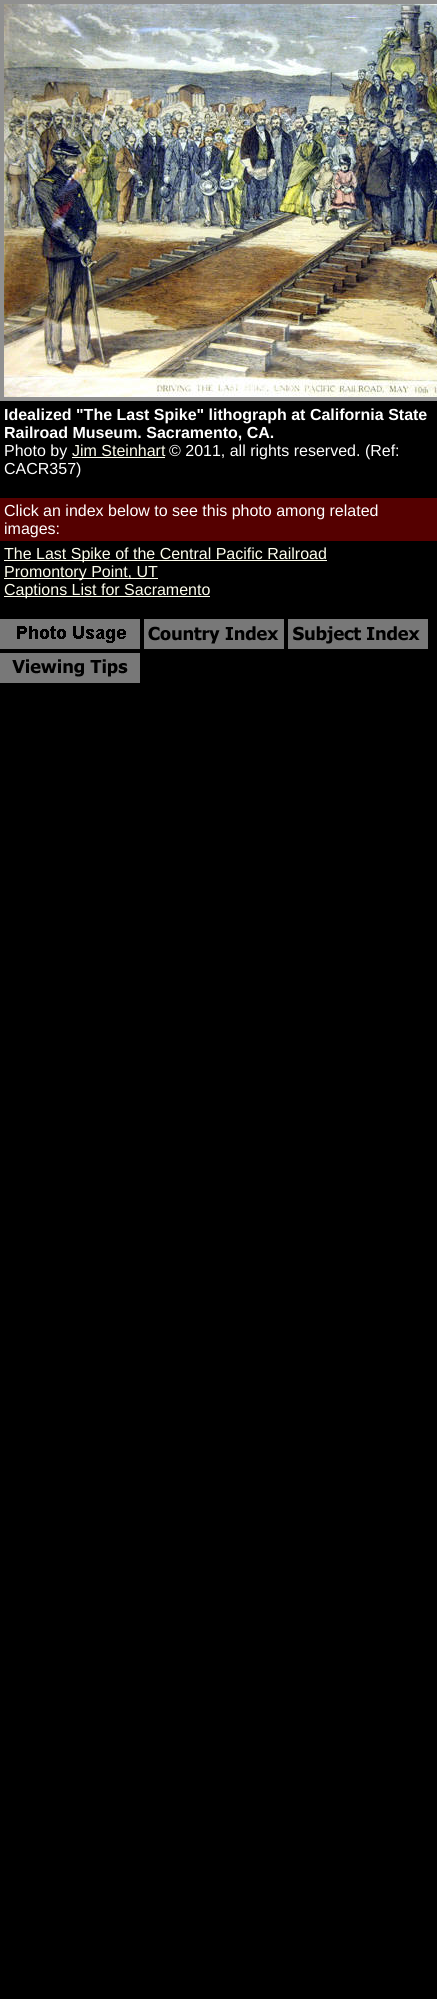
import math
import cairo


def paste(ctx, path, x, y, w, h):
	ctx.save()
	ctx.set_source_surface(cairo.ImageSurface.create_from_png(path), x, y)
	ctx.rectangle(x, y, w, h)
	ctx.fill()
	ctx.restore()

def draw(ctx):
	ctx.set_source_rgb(0, 0, 0)
	ctx.paint()
	ctx.set_source_rgb(0.565, 0.565, 0.565)
	ctx.rectangle(0, 0, 437, 401)
	ctx.fill()
	paste(ctx, 'media/1.png', 4, 4, 433, 393)
	ctx.select_font_face('Liberation Sans', cairo.FONT_SLANT_NORMAL, cairo.FONT_WEIGHT_BOLD)
	ctx.set_font_size(16)
	ctx.set_source_rgb(1, 1, 1)
	ctx.move_to(4, 420)
	ctx.show_text('Idealized "The Last Spike" lithograph at California State')
	ctx.move_to(4, 438)
	ctx.show_text('Railroad Museum. Sacramento, CA.')
	ctx.select_font_face('Liberation Sans')
	ctx.move_to(4, 456)
	ctx.show_text('Photo by')
	ctx.set_source_rgb(1, 1, 0.933)
	ctx.move_to(72, 456)
	ctx.show_text('Jim Steinhart')
	ctx.rectangle(72, 457, 93, 1)
	ctx.fill()
	ctx.set_source_rgb(1, 1, 1)
	ctx.move_to(169, 456)
	ctx.show_text('© 2011, all rights reserved. (Ref:')
	ctx.move_to(4, 474)
	ctx.show_text('CACR357)')
	ctx.set_source_rgb(0.333, 0, 0)
	ctx.rectangle(0, 498, 437, 43)
	ctx.fill()
	ctx.set_source_rgb(1, 1, 1)
	ctx.move_to(4, 516)
	ctx.show_text('Click an index below to see this photo among related')
	ctx.move_to(4, 534)
	ctx.show_text('images:')
	ctx.set_source_rgb(1, 1, 0.933)
	ctx.rectangle(4, 560, 323, 1)
	ctx.fill()
	ctx.move_to(4, 559)
	ctx.show_text('The Last Spike of the Central Pacific Railroad')
	ctx.rectangle(4, 578, 154, 1)
	ctx.fill()
	ctx.move_to(4, 577)
	ctx.show_text('Promontory Point, UT')
	ctx.rectangle(4, 596, 206, 1)
	ctx.fill()
	ctx.move_to(4, 595)
	ctx.show_text('Captions List for Sacramento')
	paste(ctx, 'media/2.png', 0, 619, 140, 30)
	paste(ctx, 'media/3.png', 144, 619, 140, 30)
	paste(ctx, 'media/4.png', 288, 619, 140, 30)
	paste(ctx, 'media/5.png', 0, 653, 140, 30)


surface = cairo.ImageSurface(cairo.FORMAT_RGB24, 437, 1999)
ctx = cairo.Context(surface)
options = cairo.FontOptions()
options.set_hint_metrics(cairo.HINT_METRICS_OFF)
options.set_hint_style(cairo.HINT_STYLE_NONE)
ctx.set_font_options(options)
ctx.set_miter_limit(4)
draw(ctx)
surface.write_to_png('image.png')
